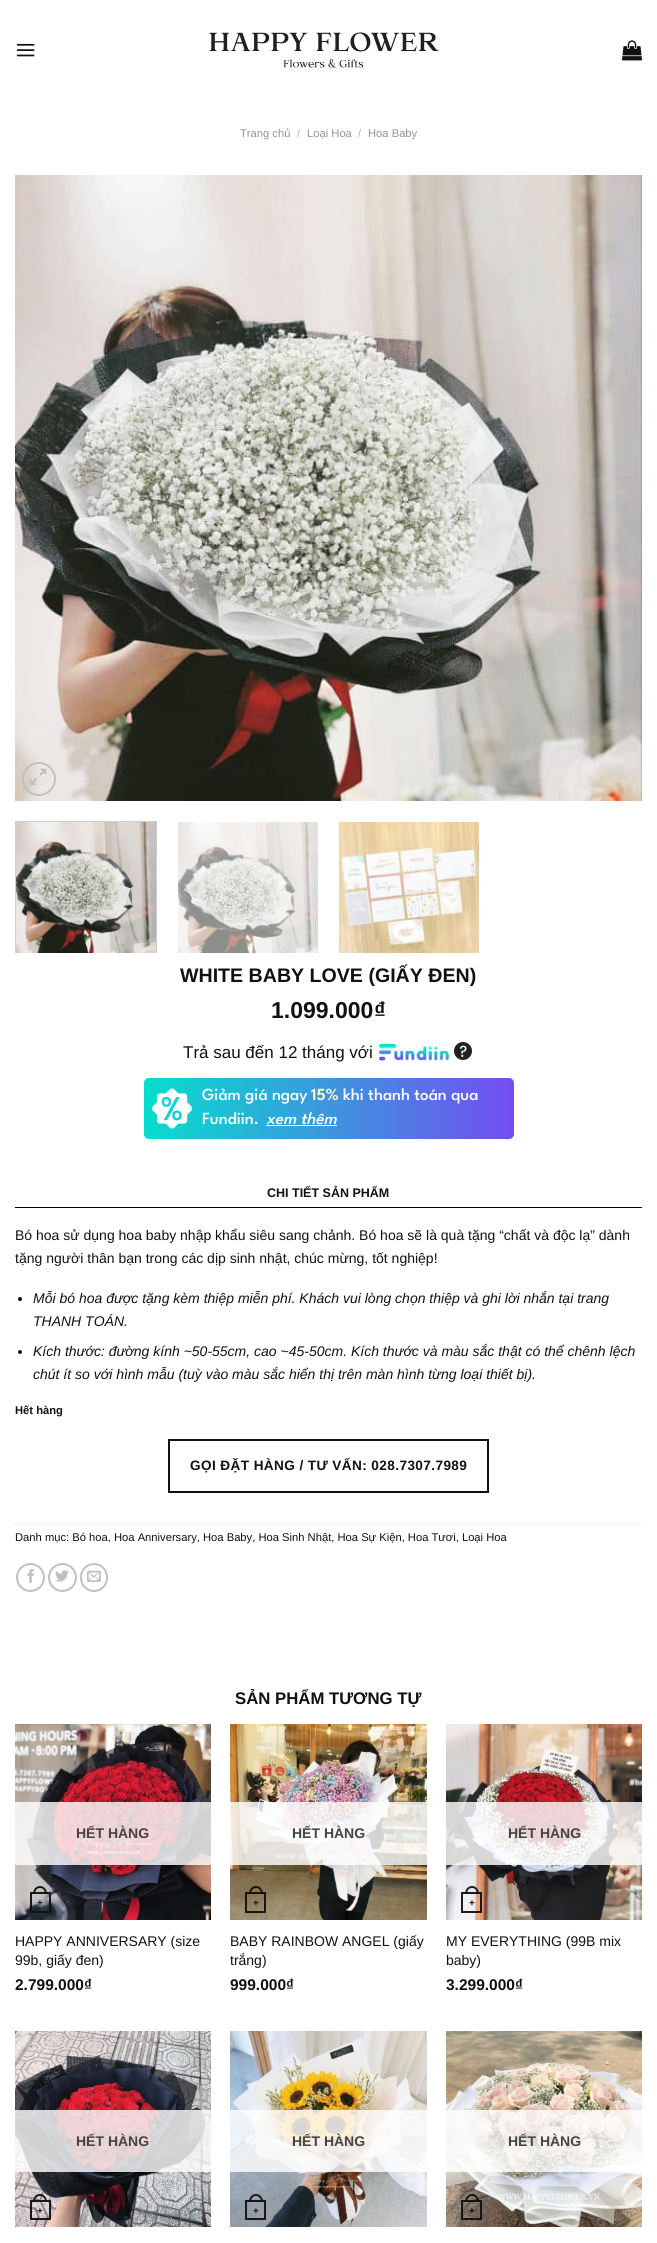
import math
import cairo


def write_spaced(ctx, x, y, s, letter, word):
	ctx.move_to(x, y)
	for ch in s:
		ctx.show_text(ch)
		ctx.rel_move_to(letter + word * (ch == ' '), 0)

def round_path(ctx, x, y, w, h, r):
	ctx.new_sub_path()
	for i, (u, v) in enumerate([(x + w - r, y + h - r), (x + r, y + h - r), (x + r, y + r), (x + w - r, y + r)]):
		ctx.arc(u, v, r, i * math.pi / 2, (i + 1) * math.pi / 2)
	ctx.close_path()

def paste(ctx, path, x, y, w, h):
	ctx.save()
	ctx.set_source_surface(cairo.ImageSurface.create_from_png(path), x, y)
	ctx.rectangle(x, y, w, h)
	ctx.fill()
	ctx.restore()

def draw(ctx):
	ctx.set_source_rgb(1, 1, 1)
	ctx.paint()
	paste(ctx, 'media/1.png', 16, 43, 19, 14)
	paste(ctx, 'media/2.png', 209, 32, 230, 36)
	paste(ctx, 'media/3.png', 622, 40, 20, 21)
	ctx.select_font_face('Liberation Sans')
	ctx.set_font_size(11.2)
	ctx.set_source_rgb(0.58, 0.58, 0.58)
	ctx.move_to(240, 137)
	ctx.show_text('Trang chủ')
	ctx.set_source_rgb(0.698, 0.698, 0.698)
	ctx.move_to(297, 137)
	ctx.show_text('/')
	ctx.set_source_rgb(0.58, 0.58, 0.58)
	ctx.move_to(307, 137)
	ctx.show_text('Loại Hoa')
	ctx.set_source_rgb(0.698, 0.698, 0.698)
	ctx.move_to(358, 137)
	ctx.show_text('/')
	ctx.set_source_rgb(0.58, 0.58, 0.58)
	ctx.move_to(368, 137)
	ctx.show_text('Hoa Baby')
	paste(ctx, 'media/4.png', 15, 175, 627, 626)
	ctx.arc(39, 779, 16, 0, 2 * math.pi)
	ctx.set_source_rgb(0.753, 0.753, 0.753)
	ctx.stroke()
	paste(ctx, 'media/5.png', 30, 768, 17, 17)
	ctx.save()
	ctx.rectangle(5, 816, 647, 137)
	ctx.clip()
	ctx.rectangle(15.5, 821.5, 141, 136)
	ctx.set_source_rgb(0.8, 0.8, 0.8)
	ctx.set_line_width(1)
	ctx.stroke()
	ctx.restore()
	paste(ctx, 'media/6.png', 16, 822, 140, 131)
	paste(ctx, 'media/7.png', 178, 822, 140, 131)
	paste(ctx, 'media/8.png', 339, 822, 140, 131)
	ctx.select_font_face('Liberation Sans', cairo.FONT_SLANT_NORMAL, cairo.FONT_WEIGHT_BOLD)
	ctx.set_font_size(19.6)
	ctx.set_source_rgb(0.067, 0.067, 0.067)
	ctx.move_to(180, 982)
	ctx.show_text('WHITE BABY LOVE (GIẤY ĐEN)')
	ctx.set_font_size(23)
	ctx.move_to(271, 1018)
	ctx.show_text('1.099.000')
	ctx.move_to(374, 1018)
	ctx.show_text('₫')
	ctx.select_font_face('Liberation Sans')
	ctx.set_font_size(17)
	ctx.move_to(183, 1058)
	ctx.show_text('Trả sau đến 12 tháng với')
	paste(ctx, 'media/9.png', 379, 1044, 70, 17)
	paste(ctx, 'media/10.png', 454, 1042, 18, 18)
	gradient = cairo.LinearGradient(144, 1109, 514, 1109)
	gradient.add_color_stop_rgba(0, 0.024, 0.871, 0.804, 1)
	gradient.add_color_stop_rgba(1, 0.455, 0.302, 0.937, 1)
	ctx.set_source(gradient)
	round_path(ctx, 144, 1078, 370, 61, 5)
	ctx.fill()
	paste(ctx, 'media/11.png', 152, 1088, 40, 41)
	ctx.select_font_face('League Spartan Medium')
	ctx.set_source_rgb(1, 1, 1)
	ctx.move_to(202, 1100)
	ctx.show_text('Giảm giá ngay')
	ctx.select_font_face('League Spartan SemiBold')
	ctx.set_source_rgb(1, 0.992, 0.765)
	ctx.move_to(311, 1100)
	ctx.show_text('15%')
	ctx.select_font_face('League Spartan Medium')
	ctx.set_source_rgb(1, 1, 1)
	ctx.move_to(343, 1100)
	ctx.show_text('khi thanh toán qua')
	ctx.move_to(202, 1124)
	ctx.show_text('Fundiin.')
	ctx.select_font_face('League Spartan Medium', cairo.FONT_SLANT_ITALIC)
	ctx.move_to(266, 1124)
	ctx.show_text('xem thêm')
	ctx.rectangle(266, 1125, 71, 1)
	ctx.fill()
	ctx.set_source_rgb(0, 0, 0)
	ctx.rectangle(15, 1207, 627, 1)
	ctx.fill()
	ctx.select_font_face('Liberation Sans', cairo.FONT_SLANT_NORMAL, cairo.FONT_WEIGHT_BOLD)
	ctx.set_font_size(12.5)
	ctx.set_source_rgb(0.067, 0.067, 0.067)
	ctx.move_to(267, 1197)
	ctx.show_text('CHI TIẾT SẢN PHẨM')
	ctx.select_font_face('Liberation Sans')
	ctx.set_font_size(14)
	ctx.move_to(15, 1240)
	ctx.show_text('Bó hoa sử dụng hoa baby nhập khẩu siêu sang chảnh. Bó hoa sẽ là quà tặng “chất và độc lạ” dành')
	ctx.move_to(15, 1263)
	ctx.show_text('tặng người thân bạn trong các dịp sinh nhật, chúc mừng, tốt nghiệp!')
	ctx.new_path()
	ctx.arc(20, 1299, 2, 0, 2 * math.pi)
	ctx.fill()
	ctx.select_font_face('Liberation Sans', cairo.FONT_SLANT_ITALIC)
	ctx.move_to(33, 1303)
	ctx.show_text('Mỗi bó hoa được tặng kèm thiệp miễn phí. Khách vui lòng chọn thiệp và ghi lời nhắn tại trang')
	ctx.move_to(33, 1326)
	ctx.show_text('THANH TOÁN.')
	ctx.new_path()
	ctx.arc(20, 1352, 2, 0, 2 * math.pi)
	ctx.fill()
	ctx.move_to(33, 1356)
	ctx.show_text('Kích thước: đường kính ~50-55cm, cao ~45-50cm. Kích thước và màu sắc thật có thể chênh lệch')
	ctx.move_to(33, 1379)
	ctx.show_text('chút ít so với hình mẫu (tuỳ vào màu sắc hiển thị trên màn hình từng loại thiết bị).')
	ctx.select_font_face('Liberation Sans', cairo.FONT_SLANT_NORMAL, cairo.FONT_WEIGHT_BOLD)
	ctx.set_font_size(11.2)
	ctx.move_to(15, 1414)
	ctx.show_text('Hết hàng')
	ctx.rectangle(169, 1440, 319, 52)
	ctx.stroke()
	ctx.set_font_size(13.6)
	write_spaced(ctx, 190, 1470, 'GỌI ĐẶT HÀNG / TƯ VẤN: 028.7307.7989', 0.4, 0)
	ctx.new_path()
	ctx.move_to(15, 1523.5)
	ctx.line_to(642, 1523.5)
	ctx.set_source_rgb(0.867, 0.867, 0.867)
	ctx.set_line_width(1)
	ctx.set_dash([1, 1])
	ctx.stroke()
	ctx.select_font_face('Liberation Sans')
	ctx.set_font_size(11.2)
	ctx.set_source_rgb(0.067, 0.067, 0.067)
	ctx.move_to(15, 1541)
	ctx.show_text('Danh mục: Bó hoa, Hoa Anniversary, Hoa Baby, Hoa Sinh Nhật, Hoa Sự Kiện, Hoa Tươi, Loại Hoa')
	ctx.new_path()
	ctx.arc(30.5, 1577.5, 13.5, 0, 2 * math.pi)
	ctx.set_source_rgb(0.753, 0.753, 0.753)
	ctx.set_line_width(2)
	ctx.set_dash([])
	ctx.stroke()
	paste(ctx, 'media/12.png', 27, 1569, 7, 14)
	ctx.arc(62.5, 1577.5, 13.5, 0, 2 * math.pi)
	ctx.stroke()
	paste(ctx, 'media/13.png', 55, 1570, 14, 12)
	round_path(ctx, 81, 1564, 26, 27, 13)
	ctx.stroke()
	paste(ctx, 'media/14.png', 87, 1570, 14, 12)
	ctx.select_font_face('Liberation Sans', cairo.FONT_SLANT_NORMAL, cairo.FONT_WEIGHT_BOLD)
	ctx.set_font_size(16.75)
	ctx.set_source_rgb(0.067, 0.067, 0.067)
	ctx.move_to(235, 1704)
	ctx.show_text('SẢN PHẨM TƯƠNG TỰ')
	paste(ctx, 'media/15.png', 15, 1724, 196, 196)
	ctx.set_source_rgba(1, 1, 1, 0.81)
	ctx.rectangle(15, 1802, 196, 63)
	ctx.fill()
	ctx.set_font_size(14)
	ctx.set_source_rgb(0.275, 0.263, 0.263)
	ctx.move_to(76, 1838)
	ctx.show_text('HẾT HÀNG')
	ctx.rectangle(31, 1893, 19, 19)
	ctx.set_source_rgba(0.067, 0.067, 0.067, 0.95)
	ctx.stroke()
	ctx.set_fill_rule(cairo.FILL_RULE_EVEN_ODD)
	ctx.new_path()
	ctx.move_to(40, 1886)
	ctx.curve_to(44.5, 1886, 47, 1890, 47, 1894)
	ctx.line_to(33, 1894)
	ctx.curve_to(33, 1890, 35.5, 1886, 40, 1886)
	ctx.close_path()
	ctx.move_to(40, 1888)
	ctx.curve_to(43.5, 1888, 45, 1891, 45, 1894)
	ctx.line_to(35, 1894)
	ctx.curve_to(35, 1891, 36.5, 1888, 40, 1888)
	ctx.close_path()
	ctx.fill()
	ctx.set_font_size(10)
	ctx.set_source_rgb(0.094, 0.094, 0.098)
	ctx.move_to(37, 1906)
	ctx.show_text('+')
	ctx.select_font_face('Liberation Sans')
	ctx.set_font_size(14)
	ctx.set_source_rgb(0.067, 0.067, 0.067)
	ctx.move_to(15, 1946)
	ctx.show_text('HAPPY ANNIVERSARY (size')
	ctx.move_to(15, 1965)
	ctx.show_text('99b, giấy đen)')
	ctx.select_font_face('Liberation Sans', cairo.FONT_SLANT_NORMAL, cairo.FONT_WEIGHT_BOLD)
	ctx.set_font_size(15.5)
	ctx.move_to(15, 1990)
	ctx.show_text('2.799.000₫')
	paste(ctx, 'media/16.png', 230, 1724, 197, 196)
	ctx.set_source_rgba(1, 1, 1, 0.81)
	ctx.rectangle(230, 1802, 197, 63)
	ctx.fill()
	ctx.set_font_size(14)
	ctx.set_source_rgb(0.275, 0.263, 0.263)
	ctx.move_to(292, 1838)
	ctx.show_text('HẾT HÀNG')
	ctx.rectangle(246, 1893, 19, 19)
	ctx.set_source_rgba(0.067, 0.067, 0.067, 0.95)
	ctx.stroke()
	ctx.new_path()
	ctx.move_to(256, 1886)
	ctx.curve_to(260.5, 1886, 263, 1890, 263, 1894)
	ctx.line_to(249, 1894)
	ctx.curve_to(249, 1890, 251.5, 1886, 256, 1886)
	ctx.close_path()
	ctx.move_to(256, 1888)
	ctx.curve_to(259.5, 1888, 261, 1891, 261, 1894)
	ctx.line_to(251, 1894)
	ctx.curve_to(251, 1891, 252.5, 1888, 256, 1888)
	ctx.close_path()
	ctx.fill()
	ctx.set_font_size(10)
	ctx.set_source_rgb(0.094, 0.094, 0.098)
	ctx.move_to(253, 1906)
	ctx.show_text('+')
	ctx.select_font_face('Liberation Sans')
	ctx.set_font_size(14)
	ctx.set_source_rgb(0.067, 0.067, 0.067)
	ctx.move_to(230, 1946)
	ctx.show_text('BABY RAINBOW ANGEL (giấy')
	ctx.move_to(230, 1965)
	ctx.show_text('trắng)')
	ctx.select_font_face('Liberation Sans', cairo.FONT_SLANT_NORMAL, cairo.FONT_WEIGHT_BOLD)
	ctx.set_font_size(15.5)
	ctx.move_to(230, 1990)
	ctx.show_text('999.000₫')
	paste(ctx, 'media/17.png', 446, 1724, 196, 196)
	ctx.set_source_rgba(1, 1, 1, 0.81)
	ctx.rectangle(446, 1802, 196, 63)
	ctx.fill()
	ctx.set_font_size(14)
	ctx.set_source_rgb(0.275, 0.263, 0.263)
	ctx.move_to(508, 1838)
	ctx.show_text('HẾT HÀNG')
	ctx.rectangle(462, 1893, 19, 19)
	ctx.set_source_rgba(0.067, 0.067, 0.067, 0.95)
	ctx.stroke()
	ctx.new_path()
	ctx.move_to(472, 1886)
	ctx.curve_to(476.5, 1886, 479, 1890, 479, 1894)
	ctx.line_to(465, 1894)
	ctx.curve_to(465, 1890, 467.5, 1886, 472, 1886)
	ctx.close_path()
	ctx.move_to(472, 1888)
	ctx.curve_to(475.5, 1888, 477, 1891, 477, 1894)
	ctx.line_to(467, 1894)
	ctx.curve_to(467, 1891, 468.5, 1888, 472, 1888)
	ctx.close_path()
	ctx.fill()
	ctx.set_font_size(10)
	ctx.set_source_rgb(0.094, 0.094, 0.098)
	ctx.move_to(469, 1906)
	ctx.show_text('+')
	ctx.select_font_face('Liberation Sans')
	ctx.set_font_size(14)
	ctx.set_source_rgb(0.067, 0.067, 0.067)
	ctx.move_to(446, 1946)
	ctx.show_text('MY EVERYTHING (99B mix')
	ctx.move_to(446, 1965)
	ctx.show_text('baby)')
	ctx.select_font_face('Liberation Sans', cairo.FONT_SLANT_NORMAL, cairo.FONT_WEIGHT_BOLD)
	ctx.set_font_size(15.5)
	ctx.move_to(446, 1990)
	ctx.show_text('3.299.000₫')
	paste(ctx, 'media/18.png', 15, 2031, 196, 196)
	ctx.set_source_rgba(1, 1, 1, 0.81)
	ctx.rectangle(15, 2110, 196, 62)
	ctx.fill()
	ctx.set_font_size(14)
	ctx.set_source_rgb(0.275, 0.263, 0.263)
	ctx.move_to(76, 2146)
	ctx.show_text('HẾT HÀNG')
	ctx.rectangle(31, 2201, 19, 18)
	ctx.set_source_rgba(0.067, 0.067, 0.067, 0.95)
	ctx.stroke()
	ctx.new_path()
	ctx.move_to(40, 2194)
	ctx.curve_to(44.5, 2194, 47, 2198, 47, 2202)
	ctx.line_to(33, 2202)
	ctx.curve_to(33, 2198, 35.5, 2194, 40, 2194)
	ctx.close_path()
	ctx.move_to(40, 2196)
	ctx.curve_to(43.5, 2196, 45, 2199, 45, 2202)
	ctx.line_to(35, 2202)
	ctx.curve_to(35, 2199, 36.5, 2196, 40, 2196)
	ctx.close_path()
	ctx.fill()
	ctx.set_font_size(10)
	ctx.set_source_rgb(0.094, 0.094, 0.098)
	ctx.move_to(37, 2214)
	ctx.show_text('+')
	paste(ctx, 'media/19.png', 230, 2031, 197, 196)
	ctx.set_source_rgba(1, 1, 1, 0.81)
	ctx.rectangle(230, 2110, 197, 62)
	ctx.fill()
	ctx.set_font_size(14)
	ctx.set_source_rgb(0.275, 0.263, 0.263)
	ctx.move_to(292, 2146)
	ctx.show_text('HẾT HÀNG')
	ctx.rectangle(246, 2201, 19, 18)
	ctx.set_source_rgba(0.067, 0.067, 0.067, 0.95)
	ctx.stroke()
	ctx.new_path()
	ctx.move_to(256, 2194)
	ctx.curve_to(260.5, 2194, 263, 2198, 263, 2202)
	ctx.line_to(249, 2202)
	ctx.curve_to(249, 2198, 251.5, 2194, 256, 2194)
	ctx.close_path()
	ctx.move_to(256, 2196)
	ctx.curve_to(259.5, 2196, 261, 2199, 261, 2202)
	ctx.line_to(251, 2202)
	ctx.curve_to(251, 2199, 252.5, 2196, 256, 2196)
	ctx.close_path()
	ctx.fill()
	ctx.set_font_size(10)
	ctx.set_source_rgb(0.094, 0.094, 0.098)
	ctx.move_to(253, 2214)
	ctx.show_text('+')
	paste(ctx, 'media/20.png', 446, 2031, 196, 196)
	ctx.set_source_rgba(1, 1, 1, 0.81)
	ctx.rectangle(446, 2110, 196, 62)
	ctx.fill()
	ctx.set_font_size(14)
	ctx.set_source_rgb(0.275, 0.263, 0.263)
	ctx.move_to(508, 2146)
	ctx.show_text('HẾT HÀNG')
	ctx.rectangle(462, 2201, 19, 18)
	ctx.set_source_rgba(0.067, 0.067, 0.067, 0.95)
	ctx.stroke()
	ctx.new_path()
	ctx.move_to(472, 2194)
	ctx.curve_to(476.5, 2194, 479, 2198, 479, 2202)
	ctx.line_to(465, 2202)
	ctx.curve_to(465, 2198, 467.5, 2194, 472, 2194)
	ctx.close_path()
	ctx.move_to(472, 2196)
	ctx.curve_to(475.5, 2196, 477, 2199, 477, 2202)
	ctx.line_to(467, 2202)
	ctx.curve_to(467, 2199, 468.5, 2196, 472, 2196)
	ctx.close_path()
	ctx.fill()
	ctx.set_font_size(10)
	ctx.set_source_rgb(0.067, 0.067, 0.067)
	ctx.move_to(469, 2214)
	ctx.show_text('+')


surface = cairo.ImageSurface(cairo.FORMAT_RGB24, 657, 2243)
ctx = cairo.Context(surface)
options = cairo.FontOptions()
options.set_hint_metrics(cairo.HINT_METRICS_OFF)
options.set_hint_style(cairo.HINT_STYLE_NONE)
ctx.set_font_options(options)
ctx.set_miter_limit(4)
draw(ctx)
surface.write_to_png('image.png')
